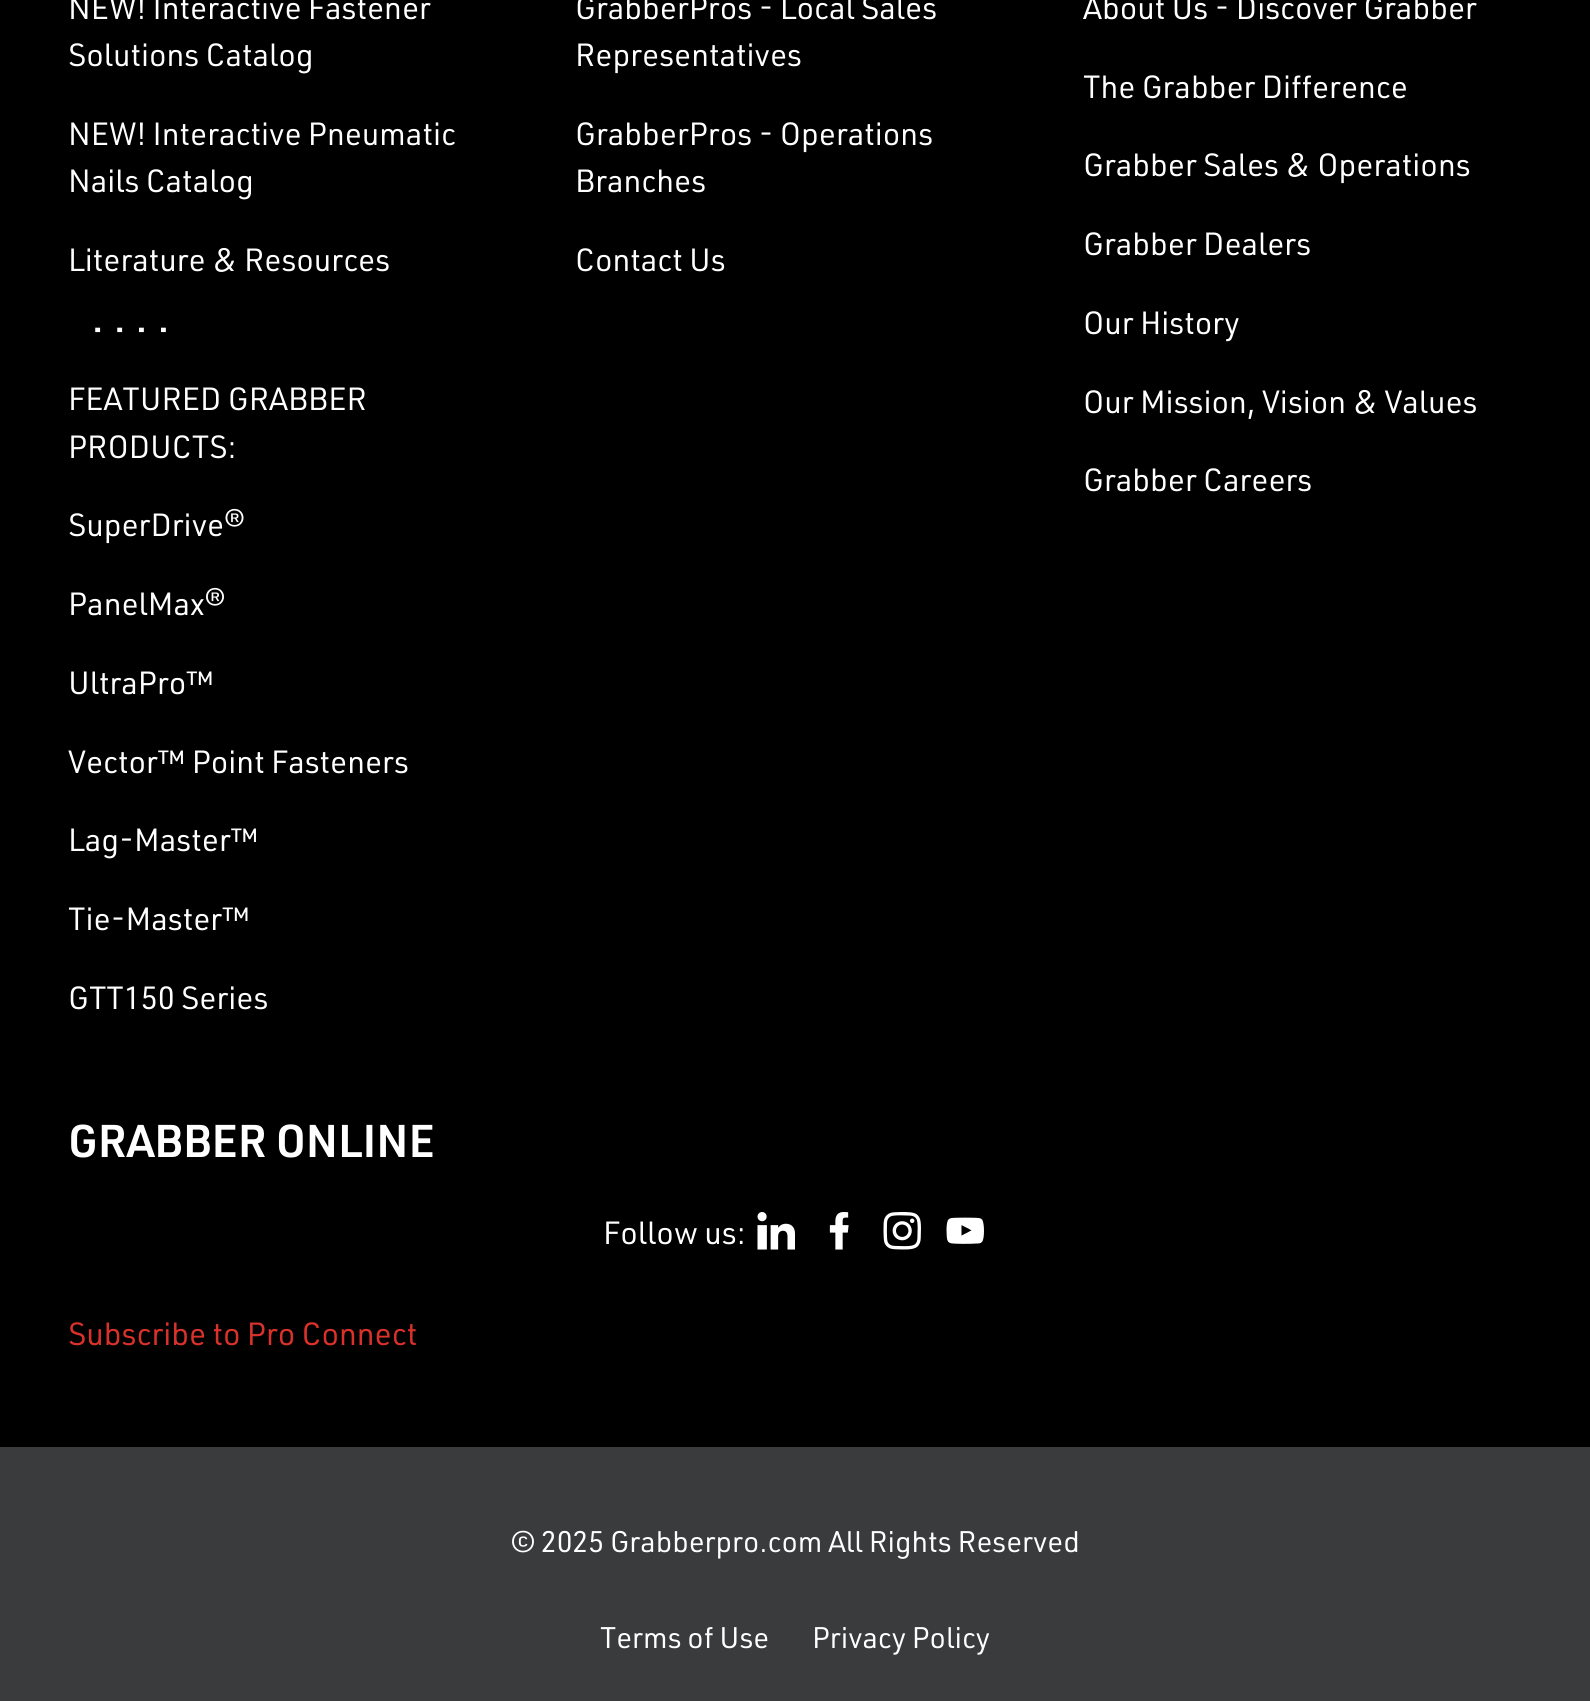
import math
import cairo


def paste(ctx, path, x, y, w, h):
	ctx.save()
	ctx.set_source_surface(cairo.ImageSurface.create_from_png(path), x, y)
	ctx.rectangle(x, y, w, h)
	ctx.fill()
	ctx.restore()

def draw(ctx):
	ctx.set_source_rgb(0, 0, 0)
	ctx.paint()
	ctx.select_font_face('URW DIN')
	ctx.set_font_size(31.5)
	ctx.set_source_rgb(1, 1, 1)
	for x, y, s in [
		(68, 19, 'NEW! Interactive Fastener'),
		(68, 66, 'Solutions Catalog'),
		(68, 145, 'NEW! Interactive Pneumatic'),
		(68, 192, 'Nails Catalog'),
		(68, 271, 'Literature & Resources'),
	]:
		ctx.move_to(x, y)
		ctx.show_text(s)
	ctx.select_font_face('URW DIN', cairo.FONT_SLANT_NORMAL, cairo.FONT_WEIGHT_BOLD)
	ctx.move_to(93, 341)
	ctx.show_text('·  ·  ·  ·')
	ctx.select_font_face('URW DIN')
	for x, y, s in [
		(68, 410, 'FEATURED GRABBER'),
		(68, 458, 'PRODUCTS:'),
		(68, 536, 'SuperDrive®'),
		(68, 615, 'PanelMax®'),
		(68, 694, 'UltraPro™'),
		(68, 773, 'Vector™ Point Fasteners'),
		(68, 851, 'Lag-Master™'),
		(68, 930, 'Tie-Master™'),
		(68, 1009, 'GTT150 Series'),
		(575, 19, 'GrabberPros - Local Sales'),
		(575, 66, 'Representatives'),
		(575, 145, 'GrabberPros - Operations'),
		(575, 192, 'Branches'),
		(575, 271, 'Contact Us'),
		(1083, 19, 'About Us - Discover Grabber'),
		(1083, 98, 'The Grabber Difference'),
		(1083, 176, 'Grabber Sales & Operations'),
		(1083, 255, 'Grabber Dealers'),
		(1083, 334, 'Our History'),
		(1083, 413, 'Our Mission, Vision & Values'),
		(1083, 491, 'Grabber Careers'),
	]:
		ctx.move_to(x, y)
		ctx.show_text(s)
	ctx.select_font_face('URW DIN SemiBold')
	ctx.set_font_size(45)
	ctx.move_to(68, 1157)
	ctx.show_text('GRABBER ONLINE')
	ctx.select_font_face('URW DIN')
	ctx.set_font_size(31.5)
	ctx.move_to(603, 1244)
	ctx.show_text('Follow us:')
	paste(ctx, 'media/1.png', 757, 1212, 38, 38)
	paste(ctx, 'media/2.png', 829, 1212, 20, 38)
	paste(ctx, 'media/3.png', 883, 1212, 38, 38)
	paste(ctx, 'media/4.png', 946, 1217, 38, 27)
	ctx.set_source_rgb(0.855, 0.196, 0.165)
	ctx.move_to(68, 1345)
	ctx.show_text('Subscribe to Pro Connect')
	ctx.set_source_rgb(0.227, 0.231, 0.239)
	ctx.rectangle(0, 1447, 1590, 254)
	ctx.fill()
	ctx.set_font_size(29.25)
	ctx.set_source_rgb(1, 1, 1)
	for x, y, s in [
		(511, 1552, '© 2025 Grabberpro.com All Rights Reserved'),
		(600, 1648, 'Terms of Use'),
		(812, 1648, 'Privacy Policy'),
	]:
		ctx.move_to(x, y)
		ctx.show_text(s)


surface = cairo.ImageSurface(cairo.FORMAT_RGB24, 1590, 1701)
ctx = cairo.Context(surface)
options = cairo.FontOptions()
options.set_hint_metrics(cairo.HINT_METRICS_OFF)
options.set_hint_style(cairo.HINT_STYLE_NONE)
ctx.set_font_options(options)
ctx.set_miter_limit(4)
draw(ctx)
surface.write_to_png('image.png')
